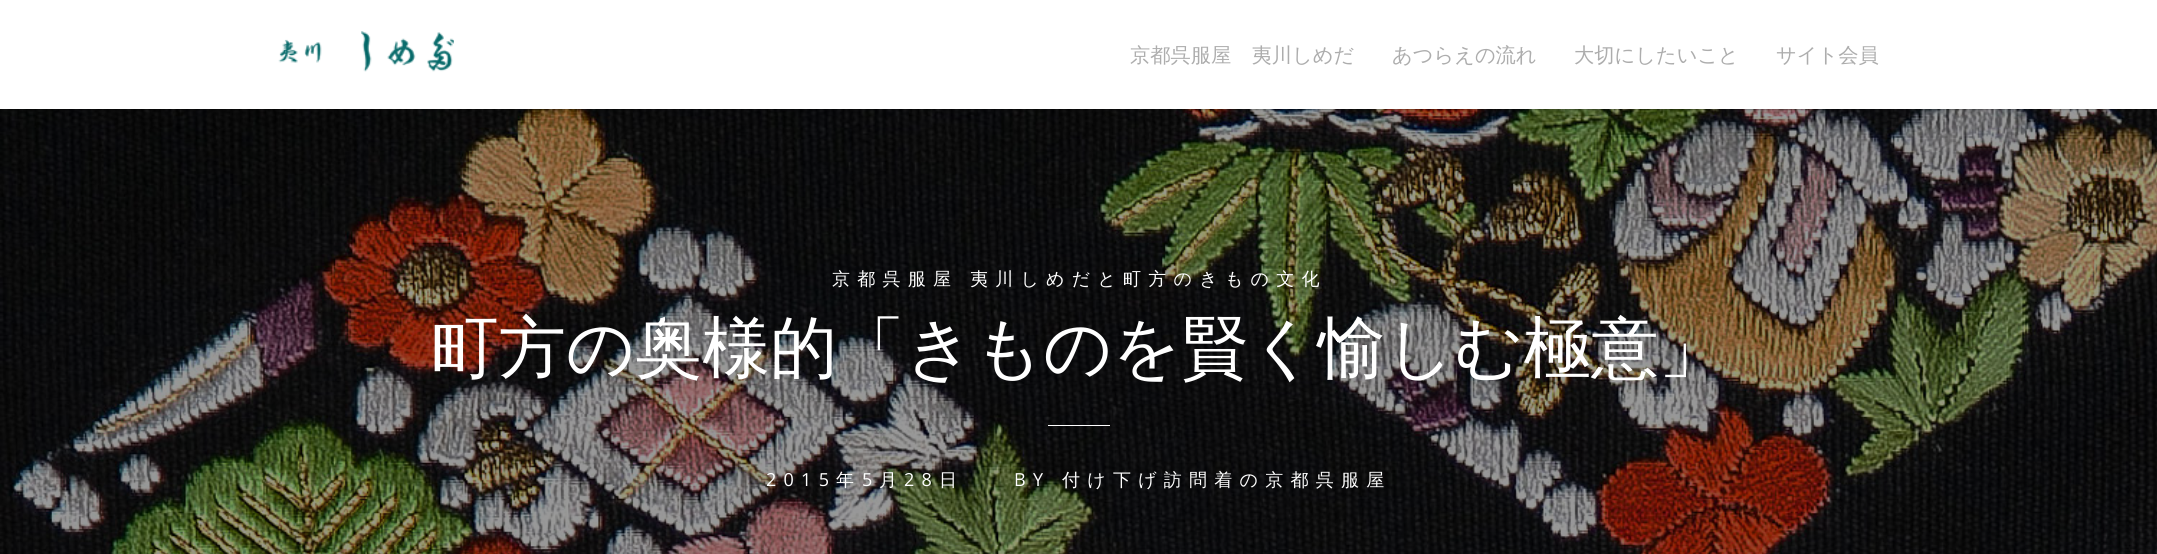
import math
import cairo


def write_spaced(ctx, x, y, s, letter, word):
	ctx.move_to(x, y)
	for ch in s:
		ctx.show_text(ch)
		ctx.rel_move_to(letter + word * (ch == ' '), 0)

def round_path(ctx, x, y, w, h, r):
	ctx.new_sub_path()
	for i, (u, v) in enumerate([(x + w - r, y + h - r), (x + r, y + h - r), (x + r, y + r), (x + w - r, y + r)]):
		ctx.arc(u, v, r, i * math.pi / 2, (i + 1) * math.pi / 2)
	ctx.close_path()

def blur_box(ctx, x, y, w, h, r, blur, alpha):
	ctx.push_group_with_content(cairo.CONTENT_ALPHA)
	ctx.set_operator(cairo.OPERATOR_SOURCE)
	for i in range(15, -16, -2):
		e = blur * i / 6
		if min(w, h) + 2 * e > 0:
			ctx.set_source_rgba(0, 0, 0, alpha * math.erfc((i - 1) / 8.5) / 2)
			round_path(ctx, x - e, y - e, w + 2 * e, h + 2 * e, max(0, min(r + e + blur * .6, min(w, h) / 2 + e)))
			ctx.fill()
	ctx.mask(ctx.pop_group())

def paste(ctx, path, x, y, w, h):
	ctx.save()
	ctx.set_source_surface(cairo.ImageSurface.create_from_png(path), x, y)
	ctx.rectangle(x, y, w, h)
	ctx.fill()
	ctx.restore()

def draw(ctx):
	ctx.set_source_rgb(1, 1, 1)
	ctx.paint()
	paste(ctx, 'media/2.png', 0, 109, 2157, 445)
	ctx.set_source_rgb(0, 0, 0)
	blur_box(ctx, 0, 1, 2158, 109, 0, 0.5, 0.2)
	ctx.set_source_rgb(1, 1, 1)
	ctx.rectangle(0, 0, 2157, 109)
	ctx.fill()
	paste(ctx, 'media/1.png', 278, 31, 176, 41)
	ctx.select_font_face('WenQuanYi Zen Hei Medium')
	ctx.set_font_size(20.25)
	ctx.set_source_rgb(0.678, 0.678, 0.678)
	for x, y, s in [
		(1130, 62, '京都呉服屋　夷川しめだ'),
		(1392, 62, 'あつらえの流れ'),
		(1574, 62, '大切にしたいこと'),
		(1776, 62, 'サイト会員'),
	]:
		ctx.move_to(x, y)
		ctx.show_text(s)
	ctx.set_font_size(18)
	ctx.set_source_rgb(1, 1, 1)
	write_spaced(ctx, 832, 285, '京都呉服屋 夷川しめだと町方のきもの文化', 7.25, -1)
	ctx.set_font_size(67.5)
	ctx.move_to(431, 371)
	ctx.show_text('町方の奥様的「きものを賢く愉しむ極意」')
	ctx.rectangle(1048, 425, 62, 1)
	ctx.fill()
	ctx.select_font_face('Open Sans')
	ctx.set_font_size(18)
	write_spaced(ctx, 766, 486, '2015', 7.25, 0)
	ctx.select_font_face('WenQuanYi Zen Hei Medium')
	write_spaced(ctx, 836, 486, '年', 7.25, 0)
	ctx.select_font_face('Open Sans')
	write_spaced(ctx, 862, 486, '5', 7.25, 0)
	ctx.select_font_face('WenQuanYi Zen Hei Medium')
	write_spaced(ctx, 879, 486, '月', 7.25, 0)
	ctx.select_font_face('Open Sans')
	write_spaced(ctx, 904, 486, '28', 7.25, 0)
	ctx.select_font_face('WenQuanYi Zen Hei Medium')
	write_spaced(ctx, 939, 486, '日', 7.25, 0)
	ctx.select_font_face('Open Sans')
	write_spaced(ctx, 1014, 486, 'BY', 7.25, 0)
	ctx.select_font_face('WenQuanYi Zen Hei Medium')
	write_spaced(ctx, 1062, 486, '付け下げ訪問着の京都呉服屋', 7.25, 0)


surface = cairo.ImageSurface(cairo.FORMAT_RGB24, 2157, 554)
ctx = cairo.Context(surface)
options = cairo.FontOptions()
options.set_hint_metrics(cairo.HINT_METRICS_OFF)
options.set_hint_style(cairo.HINT_STYLE_NONE)
ctx.set_font_options(options)
ctx.set_miter_limit(4)
draw(ctx)
surface.write_to_png('image.png')
